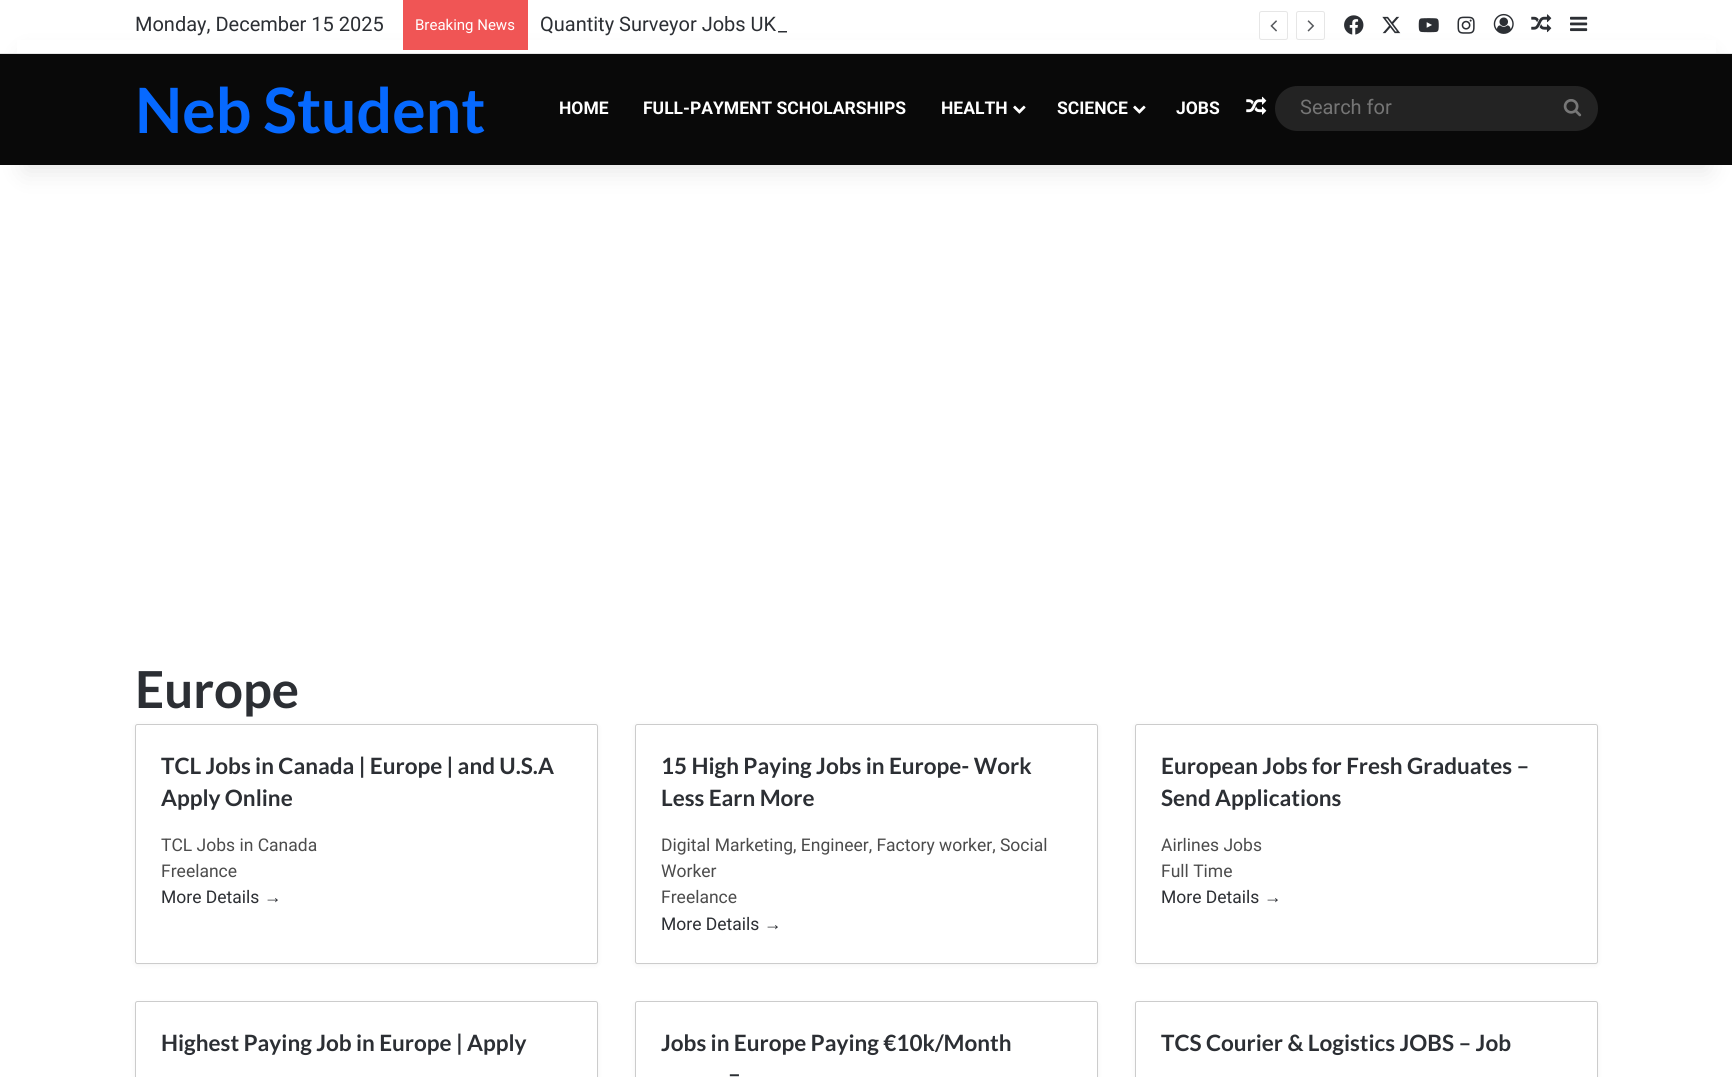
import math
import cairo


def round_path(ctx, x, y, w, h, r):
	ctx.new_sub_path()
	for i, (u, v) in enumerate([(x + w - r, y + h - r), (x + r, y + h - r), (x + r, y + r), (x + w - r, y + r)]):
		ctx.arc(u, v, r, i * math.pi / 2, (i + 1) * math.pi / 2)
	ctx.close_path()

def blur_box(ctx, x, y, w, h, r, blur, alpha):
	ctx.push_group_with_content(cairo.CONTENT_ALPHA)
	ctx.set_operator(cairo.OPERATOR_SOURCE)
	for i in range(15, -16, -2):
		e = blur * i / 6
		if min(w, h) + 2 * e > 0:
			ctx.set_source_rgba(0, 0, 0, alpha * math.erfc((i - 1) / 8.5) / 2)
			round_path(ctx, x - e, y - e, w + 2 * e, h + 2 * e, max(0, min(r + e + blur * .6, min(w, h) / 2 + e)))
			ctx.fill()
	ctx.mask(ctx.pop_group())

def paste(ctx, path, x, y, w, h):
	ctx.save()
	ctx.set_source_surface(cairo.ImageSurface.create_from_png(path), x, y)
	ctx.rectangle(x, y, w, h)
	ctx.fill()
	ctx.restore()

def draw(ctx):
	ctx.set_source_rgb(1, 1, 1)
	ctx.paint()
	ctx.set_source_rgb(0, 0, 0)
	blur_box(ctx, 25, 56, 1683, 115, 0, 12.5, 0.1)
	ctx.set_source_rgb(1, 1, 1)
	ctx.rectangle(17, 40, 1699, 13)
	ctx.fill()
	ctx.set_source_rgb(0.902, 0.902, 0.902)
	ctx.rectangle(0, 53, 1732, 1)
	ctx.fill()
	ctx.select_font_face('Roboto')
	ctx.set_font_size(20)
	ctx.set_source_rgb(0.173, 0.184, 0.204)
	ctx.move_to(135, 31)
	ctx.show_text('Monday, December 15 2025')
	ctx.set_source_rgb(0.941, 0.333, 0.333)
	ctx.rectangle(403, 0, 125, 50)
	ctx.fill()
	ctx.set_font_size(15)
	ctx.set_source_rgb(1, 1, 1)
	ctx.move_to(415, 30)
	ctx.show_text('Breaking News')
	ctx.set_font_size(20)
	ctx.set_source_rgb(0.173, 0.184, 0.204)
	ctx.move_to(540, 31)
	ctx.show_text('Quantity Surveyor Jobs UK')
	ctx.move_to(778, 31)
	ctx.show_text('_')
	round_path(ctx, 1259.5, 11.5, 28, 28, 2)
	ctx.set_source_rgb(0.902, 0.902, 0.902)
	ctx.set_line_width(1)
	ctx.stroke()
	paste(ctx, 'media/1.png', 1270, 20, 7, 12)
	round_path(ctx, 1296.5, 11.5, 28, 28, 2)
	ctx.stroke()
	paste(ctx, 'media/2.png', 1307, 20, 8, 12)
	paste(ctx, 'media/3.png', 1344, 15, 20, 20)
	paste(ctx, 'media/4.png', 1382, 16, 19, 18)
	paste(ctx, 'media/5.png', 1418, 18, 21, 15)
	paste(ctx, 'media/6.png', 1457, 16, 18, 18)
	paste(ctx, 'media/7.png', 1493, 13, 21, 21)
	paste(ctx, 'media/8.png', 1531, 14, 21, 19)
	paste(ctx, 'media/9.png', 1570, 16, 18, 16)
	ctx.set_source_rgb(0.039, 0.039, 0.039)
	ctx.rectangle(0, 54, 1732, 111)
	ctx.fill()
	ctx.select_font_face('Lato', cairo.FONT_SLANT_NORMAL, cairo.FONT_WEIGHT_BOLD)
	ctx.set_font_size(62.5)
	ctx.set_source_rgb(0.024, 0.412, 1)
	ctx.move_to(135, 133)
	ctx.show_text('Neb Student')
	ctx.select_font_face('Roboto', cairo.FONT_SLANT_NORMAL, cairo.FONT_WEIGHT_BOLD)
	ctx.set_font_size(17.5)
	ctx.set_source_rgb(1, 1, 1)
	for x, y, s in [
		(559, 114, 'HOME'),
		(643, 114, 'FULL-PAYMENT SCHOLARSHIPS'),
		(941, 114, 'HEALTH'),
	]:
		ctx.move_to(x, y)
		ctx.show_text(s)
	paste(ctx, 'media/10.png', 1013, 105, 13, 9)
	ctx.move_to(1057, 114)
	ctx.show_text('SCIENCE')
	paste(ctx, 'media/10.png', 1133, 105, 13, 9)
	ctx.move_to(1176, 114)
	ctx.show_text('JOBS')
	paste(ctx, 'media/11.png', 1246, 96, 21, 19)
	ctx.set_source_rgb(0.137, 0.137, 0.137)
	round_path(ctx, 1275, 86, 323, 45, 22.5)
	ctx.fill()
	ctx.select_font_face('Roboto')
	ctx.set_font_size(20)
	ctx.set_source_rgb(0.459, 0.459, 0.459)
	ctx.move_to(1300, 114)
	ctx.show_text('Search for')
	paste(ctx, 'media/12.png', 1563, 99, 19, 18)
	ctx.select_font_face('Lato', cairo.FONT_SLANT_NORMAL, cairo.FONT_WEIGHT_BOLD)
	ctx.set_font_size(51)
	ctx.set_source_rgb(0.173, 0.184, 0.204)
	ctx.move_to(135, 708)
	ctx.show_text('Europe')
	ctx.set_source_rgb(0, 0, 0)
	blur_box(ctx, 135, 725, 463, 240, 2.5, 2.5, 0.05)
	ctx.set_source_rgb(1, 1, 1)
	round_path(ctx, 135.5, 724.5, 462, 239, 2)
	ctx.fill_preserve()
	ctx.set_source_rgb(0.8, 0.8, 0.8)
	ctx.stroke()
	ctx.set_font_size(22.5)
	ctx.set_source_rgb(0.173, 0.184, 0.204)
	ctx.move_to(161, 774)
	ctx.show_text('TCL Jobs in Canada | Europe | and U.S.A')
	ctx.move_to(161, 806)
	ctx.show_text('Apply Online')
	ctx.select_font_face('Roboto')
	ctx.set_font_size(17.5)
	ctx.set_source_rgb(0.298, 0.298, 0.298)
	ctx.move_to(161, 851)
	ctx.show_text('TCL Jobs in Canada')
	ctx.move_to(161, 877)
	ctx.show_text('Freelance')
	ctx.set_source_rgb(0.173, 0.184, 0.204)
	ctx.move_to(161, 903)
	ctx.show_text('More Details')
	ctx.select_font_face('Liberation Sans')
	ctx.move_to(264, 903)
	ctx.show_text('→')
	ctx.set_source_rgb(0, 0, 0)
	blur_box(ctx, 635, 725, 463, 240, 2.5, 2.5, 0.05)
	ctx.set_source_rgb(1, 1, 1)
	round_path(ctx, 635.5, 724.5, 462, 239, 2)
	ctx.fill_preserve()
	ctx.set_source_rgb(0.8, 0.8, 0.8)
	ctx.stroke()
	ctx.select_font_face('Lato', cairo.FONT_SLANT_NORMAL, cairo.FONT_WEIGHT_BOLD)
	ctx.set_font_size(22.5)
	ctx.set_source_rgb(0.173, 0.184, 0.204)
	ctx.move_to(661, 774)
	ctx.show_text('15 High Paying Jobs in Europe- Work')
	ctx.move_to(661, 806)
	ctx.show_text('Less Earn More')
	ctx.select_font_face('Roboto')
	ctx.set_font_size(17.5)
	ctx.set_source_rgb(0.298, 0.298, 0.298)
	for x, y, s in [
		(661, 851, 'Digital Marketing, Engineer, Factory worker, Social'),
		(661, 877, 'Worker'),
		(661, 903, 'Freelance'),
	]:
		ctx.move_to(x, y)
		ctx.show_text(s)
	ctx.set_source_rgb(0.173, 0.184, 0.204)
	ctx.move_to(661, 930)
	ctx.show_text('More Details')
	ctx.select_font_face('Liberation Sans')
	ctx.move_to(764, 930)
	ctx.show_text('→')
	ctx.set_source_rgb(0, 0, 0)
	blur_box(ctx, 1135, 725, 463, 240, 2.5, 2.5, 0.05)
	ctx.set_source_rgb(1, 1, 1)
	round_path(ctx, 1135.5, 724.5, 462, 239, 2)
	ctx.fill_preserve()
	ctx.set_source_rgb(0.8, 0.8, 0.8)
	ctx.stroke()
	ctx.select_font_face('Lato', cairo.FONT_SLANT_NORMAL, cairo.FONT_WEIGHT_BOLD)
	ctx.set_font_size(22.5)
	ctx.set_source_rgb(0.173, 0.184, 0.204)
	ctx.move_to(1161, 774)
	ctx.show_text('European Jobs for Fresh Graduates –')
	ctx.move_to(1161, 806)
	ctx.show_text('Send Applications')
	ctx.select_font_face('Roboto')
	ctx.set_font_size(17.5)
	ctx.set_source_rgb(0.298, 0.298, 0.298)
	ctx.move_to(1161, 851)
	ctx.show_text('Airlines Jobs')
	ctx.move_to(1161, 877)
	ctx.show_text('Full Time')
	ctx.set_source_rgb(0.173, 0.184, 0.204)
	ctx.move_to(1161, 903)
	ctx.show_text('More Details')
	ctx.select_font_face('Liberation Sans')
	ctx.move_to(1264, 903)
	ctx.show_text('→')
	ctx.set_source_rgb(0, 0, 0)
	blur_box(ctx, 135, 1003, 463, 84, 2.5, 2.5, 0.05)
	ctx.set_source_rgb(1, 1, 1)
	round_path(ctx, 135.5, 1001.5, 462, 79, 2)
	ctx.fill_preserve()
	ctx.set_source_rgb(0.8, 0.8, 0.8)
	ctx.stroke()
	ctx.select_font_face('Lato', cairo.FONT_SLANT_NORMAL, cairo.FONT_WEIGHT_BOLD)
	ctx.set_font_size(22.5)
	ctx.set_source_rgb(0.173, 0.184, 0.204)
	ctx.move_to(161, 1051)
	ctx.show_text('Highest Paying Job in Europe | Apply')
	ctx.set_source_rgb(0, 0, 0)
	blur_box(ctx, 635, 1003, 463, 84, 2.5, 2.5, 0.05)
	ctx.set_source_rgb(1, 1, 1)
	round_path(ctx, 635.5, 1001.5, 462, 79, 2)
	ctx.fill_preserve()
	ctx.set_source_rgb(0.8, 0.8, 0.8)
	ctx.stroke()
	ctx.set_source_rgb(0.173, 0.184, 0.204)
	ctx.move_to(661, 1051)
	ctx.show_text('Jobs in Europe Paying €10k/Month')
	ctx.move_to(728, 1082)
	ctx.show_text('–')
	ctx.set_source_rgb(0, 0, 0)
	blur_box(ctx, 1135, 1003, 463, 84, 2.5, 2.5, 0.05)
	ctx.set_source_rgb(1, 1, 1)
	round_path(ctx, 1135.5, 1001.5, 462, 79, 2)
	ctx.fill_preserve()
	ctx.set_source_rgb(0.8, 0.8, 0.8)
	ctx.stroke()
	ctx.set_source_rgb(0.173, 0.184, 0.204)
	ctx.move_to(1161, 1051)
	ctx.show_text('TCS Courier & Logistics JOBS – Job')


surface = cairo.ImageSurface(cairo.FORMAT_RGB24, 1732, 1077)
ctx = cairo.Context(surface)
options = cairo.FontOptions()
options.set_hint_metrics(cairo.HINT_METRICS_OFF)
options.set_hint_style(cairo.HINT_STYLE_NONE)
ctx.set_font_options(options)
ctx.set_miter_limit(4)
draw(ctx)
surface.write_to_png('image.png')
